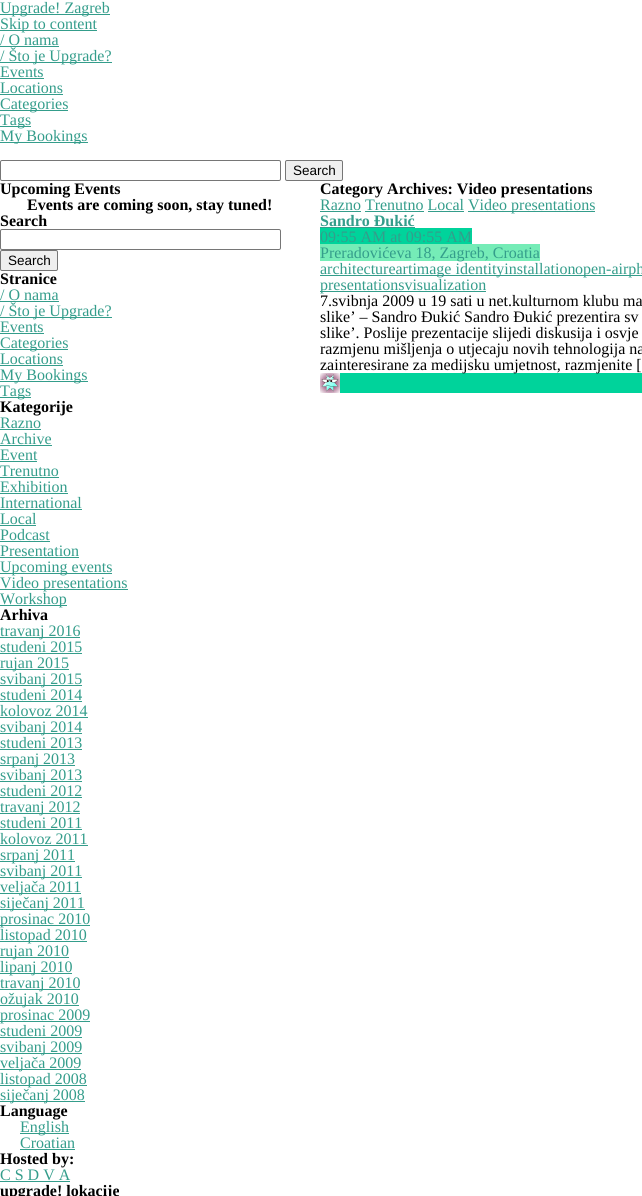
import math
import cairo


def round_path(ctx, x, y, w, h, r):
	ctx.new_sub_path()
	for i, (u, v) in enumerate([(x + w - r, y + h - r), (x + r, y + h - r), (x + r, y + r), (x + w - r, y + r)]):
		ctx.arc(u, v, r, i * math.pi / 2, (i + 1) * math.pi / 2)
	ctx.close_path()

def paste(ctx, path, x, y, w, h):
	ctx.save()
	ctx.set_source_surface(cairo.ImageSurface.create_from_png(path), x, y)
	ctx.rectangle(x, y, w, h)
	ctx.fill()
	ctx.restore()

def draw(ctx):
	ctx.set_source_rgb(1, 1, 1)
	ctx.paint()
	ctx.set_source_rgb(0.204, 0.616, 0.545)
	ctx.rectangle(0, 14, 110, 1)
	ctx.fill()
	ctx.select_font_face('Liberation Serif')
	ctx.set_font_size(16)
	ctx.move_to(0, 13)
	ctx.show_text('Upgrade! Zagreb')
	ctx.rectangle(0, 30, 97, 1)
	ctx.fill()
	ctx.move_to(0, 29)
	ctx.show_text('Skip to content')
	ctx.move_to(0, 45)
	ctx.show_text('/ O nama')
	ctx.rectangle(0, 46, 59, 1)
	ctx.fill()
	ctx.rectangle(0, 62, 112, 1)
	ctx.fill()
	ctx.move_to(0, 61)
	ctx.show_text('/ Što je Upgrade?')
	ctx.move_to(0, 77)
	ctx.show_text('Events')
	ctx.rectangle(0, 78, 44, 1)
	ctx.fill()
	ctx.move_to(0, 93)
	ctx.show_text('Locations')
	ctx.rectangle(0, 94, 63, 1)
	ctx.fill()
	ctx.rectangle(0, 110, 68, 1)
	ctx.fill()
	ctx.move_to(0, 109)
	ctx.show_text('Categories')
	ctx.rectangle(0, 126, 31, 1)
	ctx.fill()
	ctx.move_to(0, 125)
	ctx.show_text('Tags')
	ctx.rectangle(0, 142, 88, 1)
	ctx.fill()
	ctx.save()
	ctx.rectangle(0, 16, 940, 128)
	ctx.clip()
	ctx.move_to(0, 141)
	ctx.show_text('My Bookings')
	ctx.restore()
	round_path(ctx, 0.5, 160.5, 280, 20, 1.5)
	ctx.set_source_rgb(0.463, 0.463, 0.463)
	ctx.set_line_width(1)
	ctx.stroke()
	ctx.set_source_rgb(0.937, 0.937, 0.937)
	round_path(ctx, 285.5, 160.5, 57, 20, 1.5)
	ctx.fill_preserve()
	ctx.set_source_rgb(0.463, 0.463, 0.463)
	ctx.stroke()
	ctx.select_font_face('Liberation Sans')
	ctx.set_font_size(13.5)
	ctx.set_source_rgb(0, 0, 0)
	ctx.move_to(293, 175)
	ctx.show_text('Search')
	ctx.select_font_face('Liberation Serif', cairo.FONT_SLANT_NORMAL, cairo.FONT_WEIGHT_BOLD)
	ctx.set_font_size(16)
	for x, y, s in [
		(0, 194, 'Upcoming Events'),
		(27, 210, 'Events are coming soon, stay tuned!'),
		(0, 226, 'Search'),
	]:
		ctx.move_to(x, y)
		ctx.show_text(s)
	round_path(ctx, 0.5, 229.5, 280, 20, 1.5)
	ctx.set_source_rgb(0.463, 0.463, 0.463)
	ctx.stroke()
	ctx.set_source_rgb(0.937, 0.937, 0.937)
	round_path(ctx, 0.5, 250.5, 57, 20, 1.5)
	ctx.fill_preserve()
	ctx.set_source_rgb(0.463, 0.463, 0.463)
	ctx.stroke()
	ctx.select_font_face('Liberation Sans')
	ctx.set_font_size(13.5)
	ctx.set_source_rgb(0, 0, 0)
	ctx.move_to(8, 265)
	ctx.show_text('Search')
	ctx.select_font_face('Liberation Serif', cairo.FONT_SLANT_NORMAL, cairo.FONT_WEIGHT_BOLD)
	ctx.set_font_size(16)
	ctx.move_to(0, 284)
	ctx.show_text('Stranice')
	ctx.select_font_face('Liberation Serif')
	ctx.set_source_rgb(0.204, 0.616, 0.545)
	ctx.move_to(0, 300)
	ctx.show_text('/ O nama')
	ctx.rectangle(0, 301, 59, 1)
	ctx.fill()
	ctx.rectangle(0, 317, 112, 1)
	ctx.fill()
	ctx.move_to(0, 316)
	ctx.show_text('/ Što je Upgrade?')
	ctx.move_to(0, 332)
	ctx.show_text('Events')
	ctx.rectangle(0, 333, 44, 1)
	ctx.fill()
	ctx.rectangle(0, 349, 68, 1)
	ctx.fill()
	ctx.move_to(0, 348)
	ctx.show_text('Categories')
	ctx.move_to(0, 364)
	ctx.show_text('Locations')
	ctx.rectangle(0, 365, 63, 1)
	ctx.fill()
	ctx.rectangle(0, 381, 88, 1)
	ctx.fill()
	ctx.move_to(0, 380)
	ctx.show_text('My Bookings')
	ctx.rectangle(0, 397, 31, 1)
	ctx.fill()
	ctx.move_to(0, 396)
	ctx.show_text('Tags')
	ctx.select_font_face('Liberation Serif', cairo.FONT_SLANT_NORMAL, cairo.FONT_WEIGHT_BOLD)
	ctx.set_source_rgb(0, 0, 0)
	ctx.move_to(0, 412)
	ctx.show_text('Kategorije')
	ctx.select_font_face('Liberation Serif')
	ctx.set_source_rgb(0.204, 0.616, 0.545)
	ctx.move_to(0, 428)
	ctx.show_text('Razno')
	ctx.rectangle(0, 429, 41, 1)
	ctx.fill()
	ctx.move_to(0, 444)
	ctx.show_text('Archive')
	ctx.rectangle(0, 445, 52, 1)
	ctx.fill()
	ctx.move_to(0, 460)
	ctx.show_text('Event')
	ctx.rectangle(0, 461, 37, 1)
	ctx.fill()
	ctx.move_to(0, 476)
	ctx.show_text('Trenutno')
	ctx.rectangle(0, 477, 59, 1)
	ctx.fill()
	ctx.move_to(0, 492)
	ctx.show_text('Exhibition')
	ctx.rectangle(0, 493, 68, 1)
	ctx.fill()
	ctx.move_to(0, 508)
	ctx.show_text('International')
	ctx.rectangle(0, 509, 82, 1)
	ctx.fill()
	ctx.move_to(0, 524)
	ctx.show_text('Local')
	ctx.rectangle(0, 525, 36, 1)
	ctx.fill()
	ctx.move_to(0, 540)
	ctx.show_text('Podcast')
	ctx.rectangle(0, 541, 50, 1)
	ctx.fill()
	ctx.move_to(0, 556)
	ctx.show_text('Presentation')
	ctx.rectangle(0, 557, 79, 1)
	ctx.fill()
	ctx.rectangle(0, 573, 112, 1)
	ctx.fill()
	ctx.move_to(0, 572)
	ctx.show_text('Upcoming events')
	ctx.rectangle(0, 589, 128, 1)
	ctx.fill()
	ctx.move_to(0, 588)
	ctx.show_text('Video presentations')
	ctx.rectangle(0, 605, 67, 1)
	ctx.fill()
	ctx.move_to(0, 604)
	ctx.show_text('Workshop')
	ctx.select_font_face('Liberation Serif', cairo.FONT_SLANT_NORMAL, cairo.FONT_WEIGHT_BOLD)
	ctx.set_source_rgb(0, 0, 0)
	ctx.move_to(0, 620)
	ctx.show_text('Arhiva')
	ctx.set_source_rgb(0.204, 0.616, 0.545)
	ctx.rectangle(0, 637, 80, 1)
	ctx.fill()
	ctx.select_font_face('Liberation Serif')
	ctx.move_to(0, 636)
	ctx.show_text('travanj 2016')
	ctx.move_to(0, 652)
	ctx.show_text('studeni 2015')
	ctx.rectangle(0, 653, 82, 1)
	ctx.fill()
	ctx.rectangle(0, 669, 69, 1)
	ctx.fill()
	ctx.move_to(0, 668)
	ctx.show_text('rujan 2015')
	ctx.rectangle(0, 685, 82, 1)
	ctx.fill()
	ctx.move_to(0, 684)
	ctx.show_text('svibanj 2015')
	ctx.move_to(0, 700)
	ctx.show_text('studeni 2014')
	ctx.rectangle(0, 701, 82, 1)
	ctx.fill()
	ctx.move_to(0, 716)
	ctx.show_text('kolovoz 2014')
	ctx.rectangle(0, 717, 88, 1)
	ctx.fill()
	ctx.rectangle(0, 733, 82, 1)
	ctx.fill()
	ctx.move_to(0, 732)
	ctx.show_text('svibanj 2014')
	ctx.move_to(0, 748)
	ctx.show_text('studeni 2013')
	ctx.rectangle(0, 749, 82, 1)
	ctx.fill()
	ctx.rectangle(0, 765, 75, 1)
	ctx.fill()
	ctx.move_to(0, 764)
	ctx.show_text('srpanj 2013')
	ctx.rectangle(0, 781, 82, 1)
	ctx.fill()
	ctx.move_to(0, 780)
	ctx.show_text('svibanj 2013')
	ctx.move_to(0, 796)
	ctx.show_text('studeni 2012')
	ctx.rectangle(0, 797, 82, 1)
	ctx.fill()
	ctx.rectangle(0, 813, 80, 1)
	ctx.fill()
	ctx.move_to(0, 812)
	ctx.show_text('travanj 2012')
	ctx.move_to(0, 828)
	ctx.show_text('studeni 2011')
	ctx.rectangle(0, 829, 82, 1)
	ctx.fill()
	ctx.move_to(0, 844)
	ctx.show_text('kolovoz 2011')
	ctx.rectangle(0, 845, 88, 1)
	ctx.fill()
	ctx.rectangle(0, 861, 75, 1)
	ctx.fill()
	ctx.move_to(0, 860)
	ctx.show_text('srpanj 2011')
	ctx.rectangle(0, 877, 82, 1)
	ctx.fill()
	ctx.move_to(0, 876)
	ctx.show_text('svibanj 2011')
	ctx.rectangle(0, 893, 81, 1)
	ctx.fill()
	ctx.move_to(0, 892)
	ctx.show_text('veljača 2011')
	ctx.rectangle(0, 909, 85, 1)
	ctx.fill()
	ctx.move_to(0, 908)
	ctx.show_text('siječanj 2011')
	ctx.rectangle(0, 925, 90, 1)
	ctx.fill()
	ctx.move_to(0, 924)
	ctx.show_text('prosinac 2010')
	ctx.rectangle(0, 941, 87, 1)
	ctx.fill()
	ctx.move_to(0, 940)
	ctx.show_text('listopad 2010')
	ctx.rectangle(0, 957, 69, 1)
	ctx.fill()
	ctx.move_to(0, 956)
	ctx.show_text('rujan 2010')
	ctx.rectangle(0, 973, 72, 1)
	ctx.fill()
	ctx.move_to(0, 972)
	ctx.show_text('lipanj 2010')
	ctx.rectangle(0, 989, 80, 1)
	ctx.fill()
	ctx.move_to(0, 988)
	ctx.show_text('travanj 2010')
	ctx.rectangle(0, 1005, 79, 1)
	ctx.fill()
	ctx.move_to(0, 1004)
	ctx.show_text('ožujak 2010')
	ctx.rectangle(0, 1021, 90, 1)
	ctx.fill()
	ctx.move_to(0, 1020)
	ctx.show_text('prosinac 2009')
	ctx.move_to(0, 1036)
	ctx.show_text('studeni 2009')
	ctx.rectangle(0, 1037, 82, 1)
	ctx.fill()
	ctx.rectangle(0, 1053, 82, 1)
	ctx.fill()
	ctx.move_to(0, 1052)
	ctx.show_text('svibanj 2009')
	ctx.rectangle(0, 1069, 81, 1)
	ctx.fill()
	ctx.move_to(0, 1068)
	ctx.show_text('veljača 2009')
	ctx.rectangle(0, 1085, 87, 1)
	ctx.fill()
	ctx.move_to(0, 1084)
	ctx.show_text('listopad 2008')
	ctx.rectangle(0, 1101, 85, 1)
	ctx.fill()
	ctx.move_to(0, 1100)
	ctx.show_text('siječanj 2008')
	ctx.select_font_face('Liberation Serif', cairo.FONT_SLANT_NORMAL, cairo.FONT_WEIGHT_BOLD)
	ctx.set_source_rgb(0, 0, 0)
	ctx.move_to(320, 194)
	ctx.show_text('Category Archives: Video presentations')
	ctx.select_font_face('Liberation Serif')
	ctx.set_source_rgb(0.204, 0.616, 0.545)
	ctx.move_to(320, 210)
	ctx.show_text('Razno Trenutno Local')
	ctx.rectangle(320, 211, 41, 1)
	ctx.rectangle(365, 211, 59, 1)
	ctx.rectangle(428, 211, 36, 1)
	ctx.rectangle(468, 211, 127, 1)
	ctx.fill()
	ctx.move_to(468, 210)
	ctx.show_text('Video presentations')
	ctx.select_font_face('Liberation Serif', cairo.FONT_SLANT_NORMAL, cairo.FONT_WEIGHT_BOLD)
	ctx.move_to(320, 226)
	ctx.show_text('Sandro Đukić')
	ctx.rectangle(320, 227, 95, 1)
	ctx.fill()
	ctx.set_source_rgb(0, 0.827, 0.608)
	ctx.rectangle(320, 228, 152, 16)
	ctx.fill()
	ctx.select_font_face('Liberation Serif')
	ctx.set_source_rgb(0.204, 0.616, 0.545)
	ctx.move_to(320, 242)
	ctx.show_text('09:55 AM at 09:55 AM')
	ctx.set_source_rgb(0.459, 0.925, 0.718)
	ctx.rectangle(320, 244, 220, 17)
	ctx.fill()
	ctx.set_source_rgb(0.204, 0.616, 0.545)
	ctx.move_to(320, 258)
	ctx.show_text('Preradovićeva 18, Zagreb, Croatia')
	ctx.rectangle(320, 275, 184, 1)
	ctx.fill()
	ctx.move_to(320, 274)
	ctx.show_text('architectureartimage identityinstallation')
	ctx.rectangle(504, 275, 138, 1)
	ctx.fill()
	ctx.move_to(575, 274)
	ctx.show_text('open-airph')
	ctx.rectangle(320, 291, 166, 1)
	ctx.fill()
	ctx.move_to(320, 290)
	ctx.show_text('presentationsvisualization')
	ctx.set_source_rgb(0, 0, 0)
	for x, y, s in [
		(320, 306, '7.svibnja 2009 u 19 sati u net.kulturnom klubu ma'),
		(320, 322, 'slike’ – Sandro Đukić Sandro Đukić prezentira sv'),
		(320, 338, 'slike’. Poslije prezentacije slijedi diskusija i osvje'),
		(320, 354, 'razmjenu mišljenja o utjecaju novih tehnologija na'),
	]:
		ctx.move_to(x, y)
		ctx.show_text(s)
	ctx.set_source_rgb(0, 0.827, 0.608)
	ctx.rectangle(340, 373, 302, 20)
	ctx.fill()
	ctx.set_source_rgb(0, 0, 0)
	ctx.move_to(320, 370)
	ctx.show_text('zainteresirane za medijsku umjetnost, razmjenite [')
	paste(ctx, 'media/1.png', 320, 373, 20, 20)
	ctx.select_font_face('Liberation Serif', cairo.FONT_SLANT_NORMAL, cairo.FONT_WEIGHT_BOLD)
	ctx.move_to(0, 1116)
	ctx.show_text('Language')
	ctx.set_source_rgb(0.204, 0.616, 0.545)
	ctx.rectangle(20, 1133, 49, 1)
	ctx.fill()
	ctx.select_font_face('Liberation Serif')
	ctx.move_to(20, 1132)
	ctx.show_text('English')
	ctx.move_to(20, 1148)
	ctx.show_text('Croatian')
	ctx.rectangle(20, 1149, 55, 1)
	ctx.fill()
	ctx.select_font_face('Liberation Serif', cairo.FONT_SLANT_NORMAL, cairo.FONT_WEIGHT_BOLD)
	ctx.set_source_rgb(0, 0, 0)
	ctx.move_to(0, 1164)
	ctx.show_text('Hosted by:')
	ctx.select_font_face('Liberation Serif')
	ctx.set_source_rgb(0.204, 0.616, 0.545)
	ctx.move_to(0, 1180)
	ctx.show_text('C S D V A')
	ctx.rectangle(0, 1181, 70, 1)
	ctx.fill()
	ctx.select_font_face('Liberation Serif', cairo.FONT_SLANT_NORMAL, cairo.FONT_WEIGHT_BOLD)
	ctx.set_source_rgb(0, 0, 0)
	ctx.move_to(0, 1196)
	ctx.show_text('upgrade! lokacije')


surface = cairo.ImageSurface(cairo.FORMAT_RGB24, 642, 1196)
ctx = cairo.Context(surface)
options = cairo.FontOptions()
options.set_hint_metrics(cairo.HINT_METRICS_OFF)
options.set_hint_style(cairo.HINT_STYLE_NONE)
ctx.set_font_options(options)
ctx.set_miter_limit(4)
draw(ctx)
surface.write_to_png('image.png')
